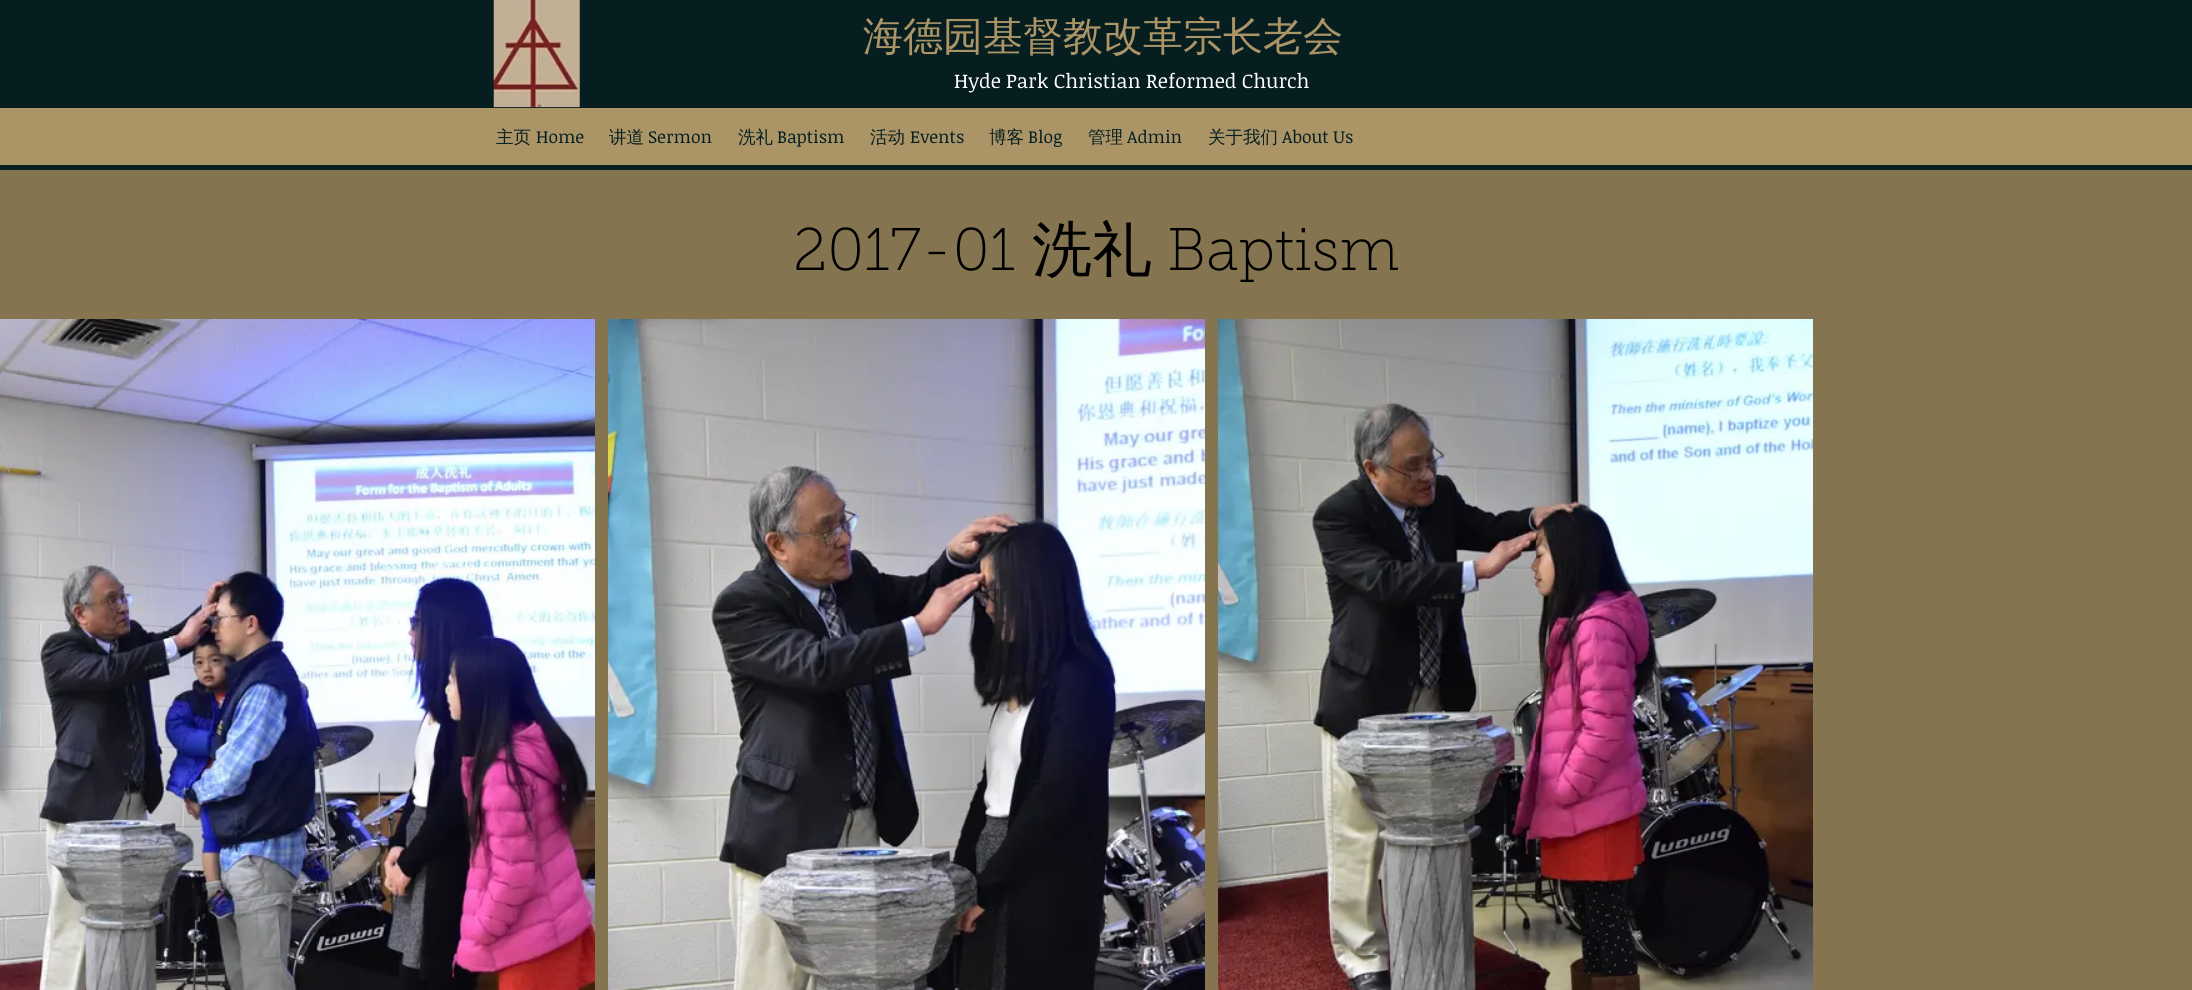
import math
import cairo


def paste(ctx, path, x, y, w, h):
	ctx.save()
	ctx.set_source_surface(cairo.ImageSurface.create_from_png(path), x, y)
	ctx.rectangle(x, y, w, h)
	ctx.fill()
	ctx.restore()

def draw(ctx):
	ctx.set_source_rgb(0.522, 0.455, 0.314)
	ctx.paint()
	ctx.set_source_rgb(0.024, 0.118, 0.125)
	ctx.rectangle(0, 0, 2192, 170)
	ctx.fill()
	paste(ctx, 'media/1.png', 493, 0, 87, 108)
	ctx.select_font_face('WenQuanYi Zen Hei Medium')
	ctx.set_font_size(40)
	ctx.set_source_rgb(0.671, 0.584, 0.404)
	ctx.move_to(863, 50)
	ctx.show_text('海德园基督教改革宗长老会')
	ctx.select_font_face('Noticia Text')
	ctx.set_font_size(20)
	ctx.set_source_rgb(1, 1, 1)
	ctx.move_to(954, 88)
	ctx.show_text('Hyde Park Christian Reformed Church')
	ctx.set_source_rgb(0.671, 0.584, 0.404)
	ctx.rectangle(0, 108, 2192, 57)
	ctx.fill()
	ctx.select_font_face('WenQuanYi Zen Hei Medium')
	ctx.set_font_size(17.5)
	ctx.set_source_rgb(0.024, 0.118, 0.125)
	ctx.move_to(496, 143)
	ctx.show_text('主页')
	ctx.select_font_face('Noticia Text')
	ctx.move_to(536, 143)
	ctx.show_text('Home')
	ctx.select_font_face('WenQuanYi Zen Hei Medium')
	ctx.move_to(609, 143)
	ctx.show_text('讲道')
	ctx.select_font_face('Noticia Text')
	ctx.move_to(648, 143)
	ctx.show_text('Sermon')
	ctx.select_font_face('WenQuanYi Zen Hei Medium')
	ctx.move_to(738, 143)
	ctx.show_text('洗礼')
	ctx.select_font_face('Noticia Text')
	ctx.move_to(777, 143)
	ctx.show_text('Baptism')
	ctx.select_font_face('WenQuanYi Zen Hei Medium')
	ctx.move_to(870, 143)
	ctx.show_text('活动')
	ctx.select_font_face('Noticia Text')
	ctx.move_to(910, 143)
	ctx.show_text('Events')
	ctx.select_font_face('WenQuanYi Zen Hei Medium')
	ctx.move_to(989, 143)
	ctx.show_text('博客')
	ctx.select_font_face('Noticia Text')
	ctx.move_to(1028, 143)
	ctx.show_text('Blog')
	ctx.select_font_face('WenQuanYi Zen Hei Medium')
	ctx.move_to(1088, 143)
	ctx.show_text('管理')
	ctx.select_font_face('Noticia Text')
	ctx.move_to(1127, 143)
	ctx.show_text('Admin')
	ctx.select_font_face('WenQuanYi Zen Hei Medium')
	ctx.move_to(1208, 143)
	ctx.show_text('关于我们')
	ctx.select_font_face('Noticia Text')
	ctx.move_to(1282, 143)
	ctx.show_text('About Us')
	ctx.select_font_face('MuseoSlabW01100 Thin')
	ctx.set_font_size(60)
	ctx.set_source_rgb(0, 0, 0)
	ctx.move_to(793, 270)
	ctx.show_text('2017-01')
	ctx.select_font_face('WenQuanYi Zen Hei Medium')
	ctx.move_to(1032, 270)
	ctx.show_text('洗礼')
	ctx.select_font_face('MuseoSlabW01100 Thin')
	ctx.move_to(1167, 270)
	ctx.show_text('Baptism')
	paste(ctx, 'media/2.png', 0, 319, 595, 671)
	paste(ctx, 'media/3.png', 608, 319, 597, 671)
	paste(ctx, 'media/4.png', 1218, 319, 595, 671)


surface = cairo.ImageSurface(cairo.FORMAT_RGB24, 2192, 990)
ctx = cairo.Context(surface)
options = cairo.FontOptions()
options.set_hint_metrics(cairo.HINT_METRICS_OFF)
options.set_hint_style(cairo.HINT_STYLE_NONE)
ctx.set_font_options(options)
ctx.set_miter_limit(4)
draw(ctx)
surface.write_to_png('image.png')
